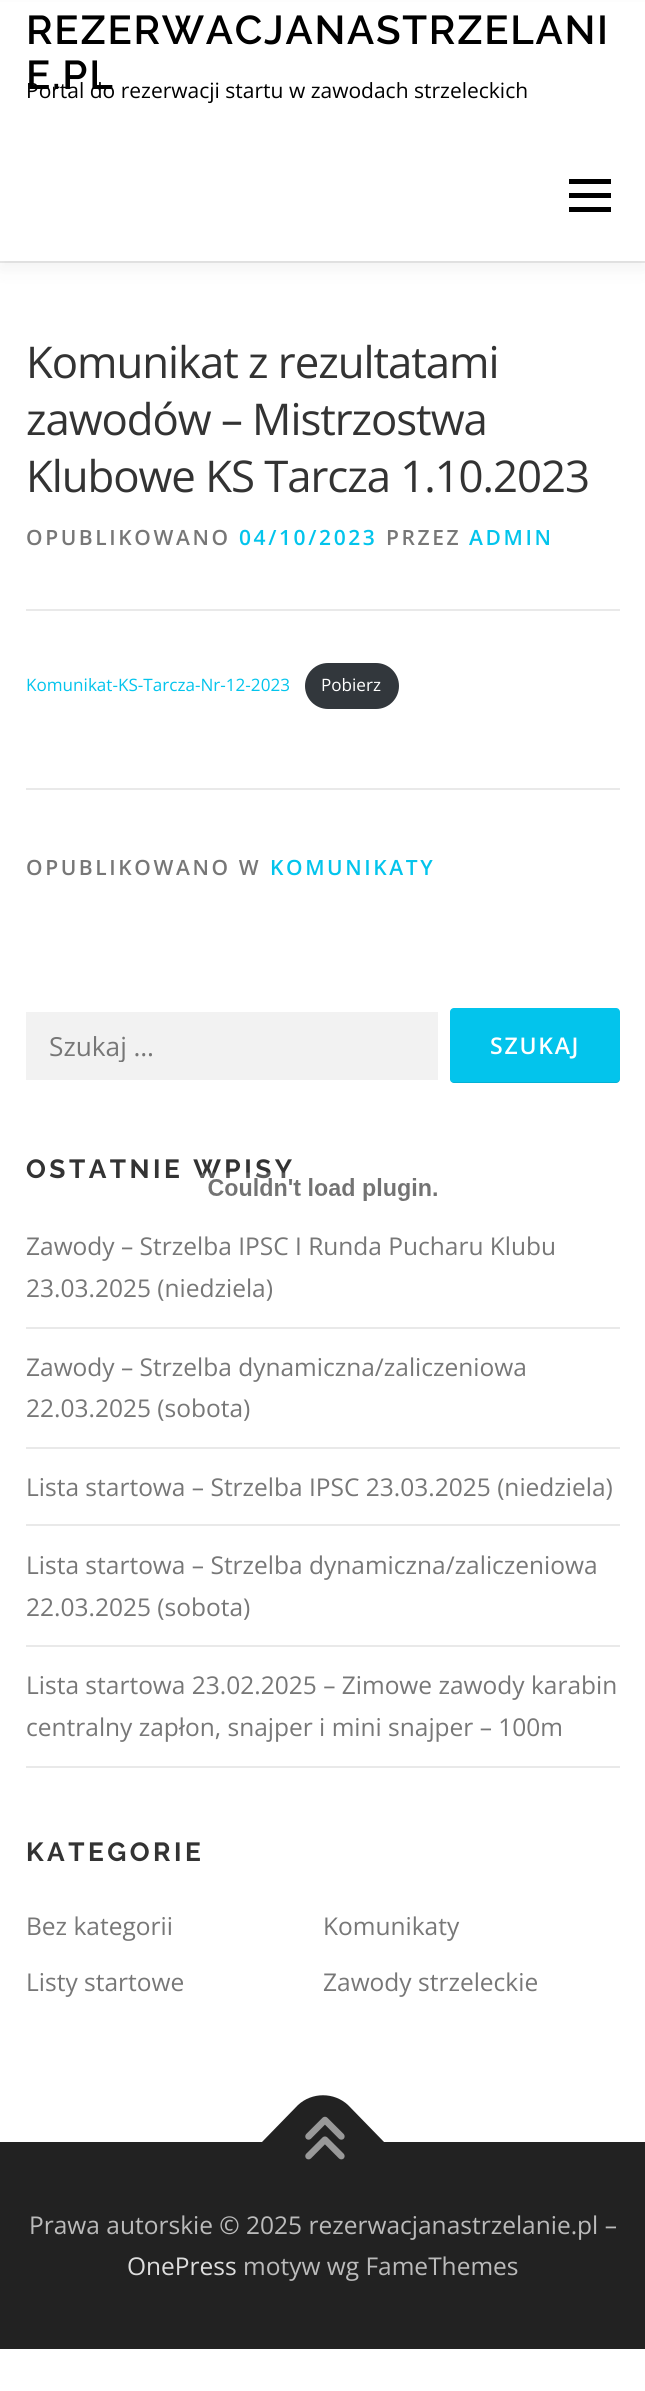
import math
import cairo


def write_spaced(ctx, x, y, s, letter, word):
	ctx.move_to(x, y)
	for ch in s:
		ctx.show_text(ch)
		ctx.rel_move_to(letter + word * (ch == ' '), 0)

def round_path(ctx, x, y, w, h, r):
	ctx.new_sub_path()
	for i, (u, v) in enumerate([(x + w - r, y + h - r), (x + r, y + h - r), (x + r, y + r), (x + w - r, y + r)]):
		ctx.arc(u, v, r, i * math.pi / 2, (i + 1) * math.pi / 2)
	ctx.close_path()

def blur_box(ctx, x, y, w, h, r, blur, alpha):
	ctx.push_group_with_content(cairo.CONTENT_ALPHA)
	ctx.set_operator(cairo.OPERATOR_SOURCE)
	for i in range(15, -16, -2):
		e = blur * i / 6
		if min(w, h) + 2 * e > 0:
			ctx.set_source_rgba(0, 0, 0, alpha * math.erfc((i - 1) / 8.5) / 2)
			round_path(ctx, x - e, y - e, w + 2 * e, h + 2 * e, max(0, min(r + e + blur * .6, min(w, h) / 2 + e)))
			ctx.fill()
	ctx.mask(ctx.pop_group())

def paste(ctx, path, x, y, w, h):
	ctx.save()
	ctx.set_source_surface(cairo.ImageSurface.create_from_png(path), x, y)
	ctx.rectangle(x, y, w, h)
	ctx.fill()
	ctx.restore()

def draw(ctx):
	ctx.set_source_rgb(1, 1, 1)
	ctx.paint()
	ctx.set_source_rgb(0.914, 0.914, 0.914)
	ctx.rectangle(0, 261, 645, 2)
	ctx.fill()
	ctx.set_source_rgb(0.196, 0.196, 0.196)
	blur_box(ctx, 0, 9, 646, 261, 0, 9, 0.06)
	ctx.set_source_rgb(1, 1, 1)
	ctx.rectangle(0, 2, 645, 259)
	ctx.fill()
	ctx.select_font_face('Raleway SemiBold')
	ctx.set_font_size(40.25)
	ctx.set_source_rgb(0, 0, 0)
	write_spaced(ctx, 26, 44, 'REZERWACJANASTRZELANI', 1.75, 0)
	write_spaced(ctx, 26, 89, 'E.PL', 1.75, 0)
	ctx.select_font_face('Open Sans')
	ctx.set_font_size(21)
	ctx.move_to(26, 98)
	ctx.show_text('Portal do rezerwacji startu w zawodach strzeleckich')
	ctx.rectangle(569, 193, 42, 5)
	ctx.rectangle(569, 179, 42, 5)
	ctx.rectangle(569, 207, 42, 5)
	ctx.fill()
	ctx.set_font_size(43.75)
	ctx.set_source_rgb(0.2, 0.2, 0.2)
	for x, y, s in [
		(26, 378, 'Komunikat z rezultatami'),
		(26, 435, 'zawodów – Mistrzostwa'),
		(26, 492, 'Klubowe KS Tarcza 1.10.2023'),
	]:
		write_spaced(ctx, x, y, s, -1.05, 0)
	ctx.set_source_rgb(0.914, 0.914, 0.914)
	ctx.rectangle(26, 609, 594, 2)
	ctx.fill()
	ctx.select_font_face('Open Sans SemiBold')
	ctx.set_font_size(21)
	ctx.set_source_rgb(0.467, 0.467, 0.467)
	write_spaced(ctx, 26, 545, 'OPUBLIKOWANO', 2.6, 0)
	ctx.set_source_rgb(0.012, 0.769, 0.922)
	write_spaced(ctx, 239, 545, '04/10/2023', 2.6, 0)
	ctx.set_source_rgb(0.467, 0.467, 0.467)
	write_spaced(ctx, 386, 545, 'PRZEZ', 2.6, 0)
	ctx.set_source_rgb(0.012, 0.769, 0.922)
	write_spaced(ctx, 469, 545, 'ADMIN', 2.6, 0)
	ctx.select_font_face('Open Sans')
	ctx.set_font_size(17.1)
	ctx.move_to(26, 691)
	ctx.show_text('Komunikat-KS-Tarcza-Nr-12-2023')
	ctx.set_source_rgb(0.196, 0.216, 0.235)
	round_path(ctx, 305, 663, 94, 46, 23)
	ctx.fill()
	ctx.set_source_rgb(1, 1, 1)
	ctx.move_to(321, 691)
	ctx.show_text('Pobierz')
	ctx.select_font_face('Raleway', cairo.FONT_SLANT_NORMAL, cairo.FONT_WEIGHT_BOLD)
	ctx.set_font_size(26.25)
	ctx.set_source_rgb(0.2, 0.2, 0.2)
	write_spaced(ctx, 26, 1178, 'OSTATNIE WPISY', 3.5, 0)
	paste(ctx, 'media/1.png', 200, 1172, 237, 29)
	ctx.set_source_rgb(0.914, 0.914, 0.914)
	ctx.rectangle(26, 788, 594, 2)
	ctx.fill()
	ctx.select_font_face('Open Sans SemiBold')
	ctx.set_font_size(21)
	ctx.set_source_rgb(0.467, 0.467, 0.467)
	write_spaced(ctx, 26, 875, 'OPUBLIKOWANO W', 2.6, 0)
	ctx.set_source_rgb(0.012, 0.769, 0.922)
	write_spaced(ctx, 270, 875, 'KOMUNIKATY', 2.6, 0)
	ctx.set_source_rgb(0.949, 0.949, 0.949)
	ctx.rectangle(26, 1012, 412, 68)
	ctx.fill()
	ctx.save()
	ctx.rectangle(49, 1027, 359, 35)
	ctx.clip()
	ctx.select_font_face('Open Sans')
	ctx.set_font_size(26.25)
	ctx.set_source_rgb(0.467, 0.467, 0.467)
	ctx.move_to(49, 1056)
	ctx.show_text('Szukaj …')
	ctx.restore()
	ctx.set_source_rgb(0.012, 0.769, 0.922)
	round_path(ctx, 450, 1008, 170, 75, 4)
	ctx.fill()
	ctx.set_source_rgba(0, 0, 0, 0.1)
	ctx.new_path()
	ctx.move_to(450, 1078)
	ctx.line_to(450, 1079)
	ctx.curve_to(450, 1081, 452, 1083, 454, 1083)
	ctx.line_to(616, 1083)
	ctx.curve_to(618, 1083, 620, 1081, 620, 1079)
	ctx.line_to(620, 1078)
	ctx.curve_to(620, 1080, 618, 1082, 616, 1082)
	ctx.line_to(453, 1082)
	ctx.curve_to(451, 1082, 450, 1080, 450, 1078)
	ctx.close_path()
	ctx.fill()
	ctx.set_font_size(23)
	ctx.set_source_rgb(1, 1, 1)
	write_spaced(ctx, 490, 1054, 'SZUKAJ', 1.75, 0)
	ctx.set_source_rgb(0.914, 0.914, 0.914)
	ctx.rectangle(26, 1327, 594, 2)
	ctx.fill()
	ctx.select_font_face('Open Sans')
	ctx.set_font_size(24.5)
	ctx.set_source_rgb(0.467, 0.467, 0.467)
	ctx.move_to(26, 1255)
	ctx.show_text('Zawody – Strzelba IPSC I Runda Pucharu Klubu')
	ctx.move_to(26, 1297)
	ctx.show_text('23.03.2025 (niedziela)')
	ctx.set_source_rgb(0.914, 0.914, 0.914)
	ctx.rectangle(26, 1447, 594, 2)
	ctx.fill()
	ctx.set_source_rgb(0.467, 0.467, 0.467)
	ctx.move_to(26, 1376)
	ctx.show_text('Zawody – Strzelba dynamiczna/zaliczeniowa')
	ctx.move_to(26, 1417)
	ctx.show_text('22.03.2025 (sobota)')
	ctx.set_source_rgb(0.914, 0.914, 0.914)
	ctx.rectangle(26, 1524, 594, 2)
	ctx.fill()
	ctx.set_source_rgb(0.467, 0.467, 0.467)
	ctx.move_to(26, 1496)
	ctx.show_text('Lista startowa – Strzelba IPSC 23.03.2025 (niedziela)')
	ctx.set_source_rgb(0.914, 0.914, 0.914)
	ctx.rectangle(26, 1645, 594, 2)
	ctx.fill()
	ctx.set_source_rgb(0.467, 0.467, 0.467)
	ctx.move_to(26, 1574)
	ctx.show_text('Lista startowa – Strzelba dynamiczna/zaliczeniowa')
	ctx.move_to(26, 1616)
	ctx.show_text('22.03.2025 (sobota)')
	ctx.set_source_rgb(0.914, 0.914, 0.914)
	ctx.rectangle(26, 1766, 594, 2)
	ctx.fill()
	ctx.set_source_rgb(0.467, 0.467, 0.467)
	ctx.move_to(26, 1694)
	ctx.show_text('Lista startowa 23.02.2025 – Zimowe zawody karabin')
	ctx.move_to(26, 1736)
	ctx.show_text('centralny zapłon, snajper i mini snajper – 100m')
	ctx.select_font_face('Raleway', cairo.FONT_SLANT_NORMAL, cairo.FONT_WEIGHT_BOLD)
	ctx.set_font_size(26.25)
	ctx.set_source_rgb(0.2, 0.2, 0.2)
	write_spaced(ctx, 26, 1861, 'KATEGORIE', 3.5, 0)
	ctx.select_font_face('Open Sans')
	ctx.set_font_size(24.5)
	ctx.set_source_rgb(0.467, 0.467, 0.467)
	for x, y, s in [
		(26, 1935, 'Bez kategorii'),
		(323, 1935, 'Komunikaty'),
		(26, 1991, 'Listy startowe'),
		(323, 1991, 'Zawody strzeleckie'),
	]:
		ctx.move_to(x, y)
		ctx.show_text(s)
	ctx.set_source_rgb(0.133, 0.133, 0.133)
	ctx.rectangle(0, 2142, 645, 207)
	ctx.fill()
	ctx.new_path()
	ctx.move_to(261, 2143)
	ctx.line_to(298, 2105)
	ctx.curve_to(312, 2092, 334, 2092, 348, 2105)
	ctx.line_to(385, 2143)
	ctx.line_to(323, 2204)
	ctx.close_path()
	ctx.fill()
	paste(ctx, 'media/2.png', 305, 2116, 40, 44)
	ctx.set_source_rgb(0.733, 0.733, 0.733)
	ctx.move_to(29, 2234)
	ctx.show_text('Prawa autorskie © 2025 rezerwacjanastrzelanie.pl –')
	ctx.set_source_rgb(0.867, 0.867, 0.867)
	ctx.move_to(127, 2275)
	ctx.show_text('OnePress')
	ctx.set_source_rgb(0.733, 0.733, 0.733)
	ctx.move_to(243, 2275)
	ctx.show_text('motyw wg FameThemes')


surface = cairo.ImageSurface(cairo.FORMAT_RGB24, 645, 2391)
ctx = cairo.Context(surface)
options = cairo.FontOptions()
options.set_hint_metrics(cairo.HINT_METRICS_OFF)
options.set_hint_style(cairo.HINT_STYLE_NONE)
ctx.set_font_options(options)
ctx.set_miter_limit(4)
draw(ctx)
surface.write_to_png('image.png')
